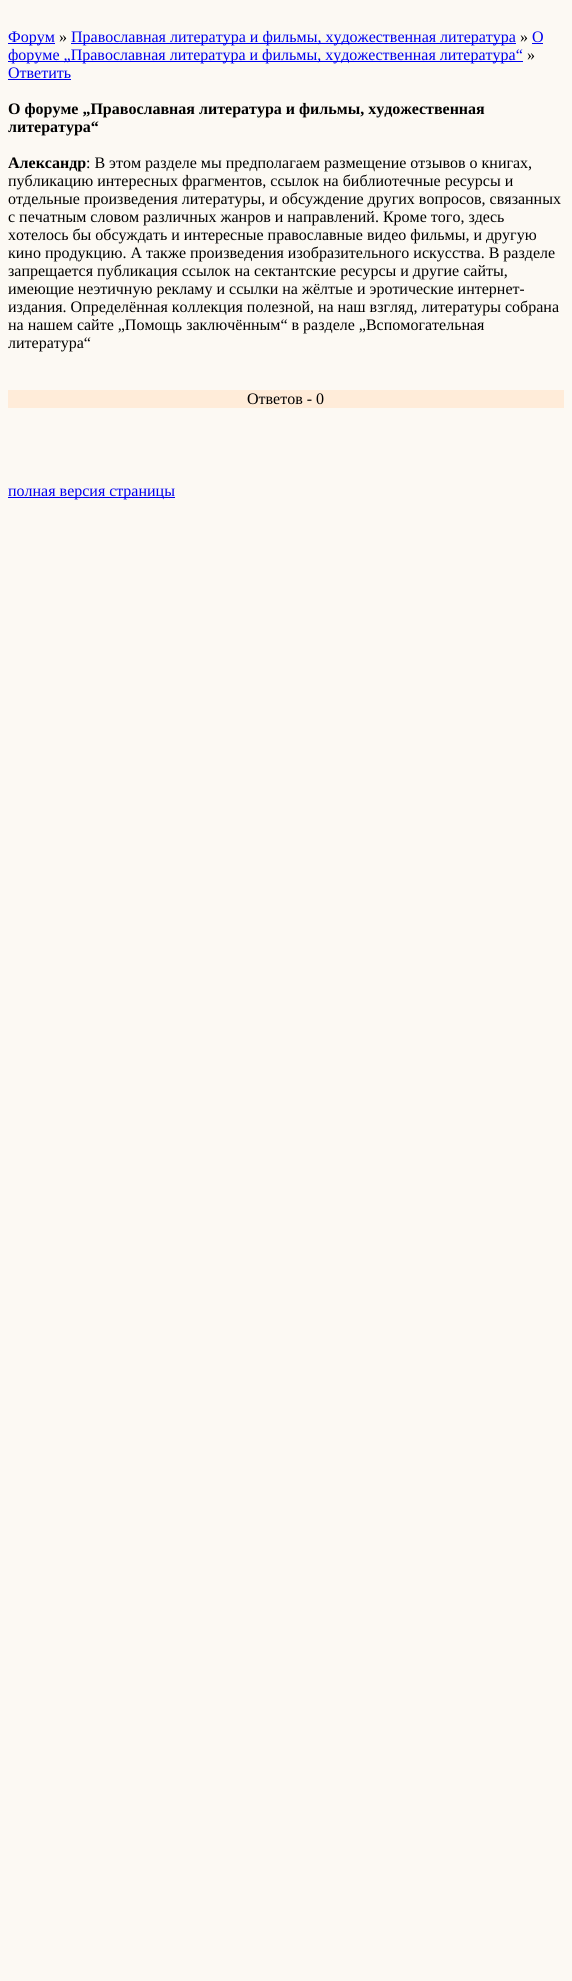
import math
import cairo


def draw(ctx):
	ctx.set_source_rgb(0.988, 0.976, 0.953)
	ctx.paint()
	ctx.set_source_rgb(0, 0, 0.933)
	ctx.rectangle(8, 43, 47, 1)
	ctx.fill()
	ctx.select_font_face('Liberation Serif')
	ctx.set_font_size(16)
	ctx.move_to(8, 42)
	ctx.show_text('Форум')
	ctx.set_source_rgb(0, 0, 0)
	ctx.move_to(59, 42)
	ctx.show_text('»')
	ctx.set_source_rgb(0, 0, 0.933)
	ctx.rectangle(71, 43, 445, 1)
	ctx.fill()
	ctx.move_to(71, 42)
	ctx.show_text('Православная литература и фильмы, художественная литература')
	ctx.set_source_rgb(0, 0, 0)
	ctx.move_to(520, 42)
	ctx.show_text('»')
	ctx.set_source_rgb(0, 0, 0.933)
	ctx.move_to(532, 42)
	ctx.show_text('О')
	ctx.rectangle(532, 43, 11, 1)
	ctx.fill()
	ctx.rectangle(8, 61, 515, 1)
	ctx.fill()
	ctx.move_to(8, 60)
	ctx.show_text('форуме „Православная литература и фильмы, художественная литература“')
	ctx.set_source_rgb(0, 0, 0)
	ctx.move_to(527, 60)
	ctx.show_text('»')
	ctx.set_source_rgb(0, 0, 0.933)
	ctx.move_to(8, 78)
	ctx.show_text('Ответить')
	ctx.rectangle(8, 79, 63, 1)
	ctx.fill()
	ctx.select_font_face('Liberation Serif', cairo.FONT_SLANT_NORMAL, cairo.FONT_WEIGHT_BOLD)
	ctx.set_source_rgb(0, 0, 0)
	for x, y, s in [
		(8, 114, 'О форуме „Православная литература и фильмы, художественная'),
		(8, 132, 'литература“'),
		(8, 168, 'Александр'),
	]:
		ctx.move_to(x, y)
		ctx.show_text(s)
	ctx.select_font_face('Liberation Serif')
	for x, y, s in [
		(86, 168, ': В этом разделе мы предполагаем размещение отзывов о книгах,'),
		(8, 186, 'публикацию интересных фрагментов, ссылок на библиотечные ресурсы и'),
		(8, 204, 'отдельные произведения литературы, и обсуждение других вопросов, связанных'),
		(8, 222, 'с печатным словом различных жанров и направлений. Кроме того, здесь'),
		(8, 240, 'хотелось бы обсуждать и интересные православные видео фильмы, и другую'),
		(8, 258, 'кино продукцию. А также произведения изобразительного искусства. В разделе'),
		(8, 276, 'запрещается публикация ссылок на сектантские ресурсы и другие сайты,'),
		(8, 294, 'имеющие неэтичную рекламу и ссылки на жёлтые и эротические интернет-'),
		(8, 312, 'издания. Определённая коллекция полезной, на наш взгляд, литературы собрана'),
		(8, 330, 'на нашем сайте „Помощь заключённым“ в разделе „Вспомогательная'),
		(8, 348, 'литература“'),
	]:
		ctx.move_to(x, y)
		ctx.show_text(s)
	ctx.set_source_rgb(1, 0.925, 0.851)
	ctx.rectangle(8, 390, 556, 18)
	ctx.fill()
	ctx.set_source_rgb(0, 0, 0)
	ctx.move_to(247, 404)
	ctx.show_text('Ответов - 0')
	ctx.set_source_rgb(0, 0, 0.933)
	ctx.rectangle(8, 497, 167, 1)
	ctx.fill()
	ctx.move_to(8, 496)
	ctx.show_text('полная версия страницы')


surface = cairo.ImageSurface(cairo.FORMAT_RGB24, 572, 1981)
ctx = cairo.Context(surface)
options = cairo.FontOptions()
options.set_hint_metrics(cairo.HINT_METRICS_OFF)
options.set_hint_style(cairo.HINT_STYLE_NONE)
ctx.set_font_options(options)
ctx.set_miter_limit(4)
draw(ctx)
surface.write_to_png('image.png')
